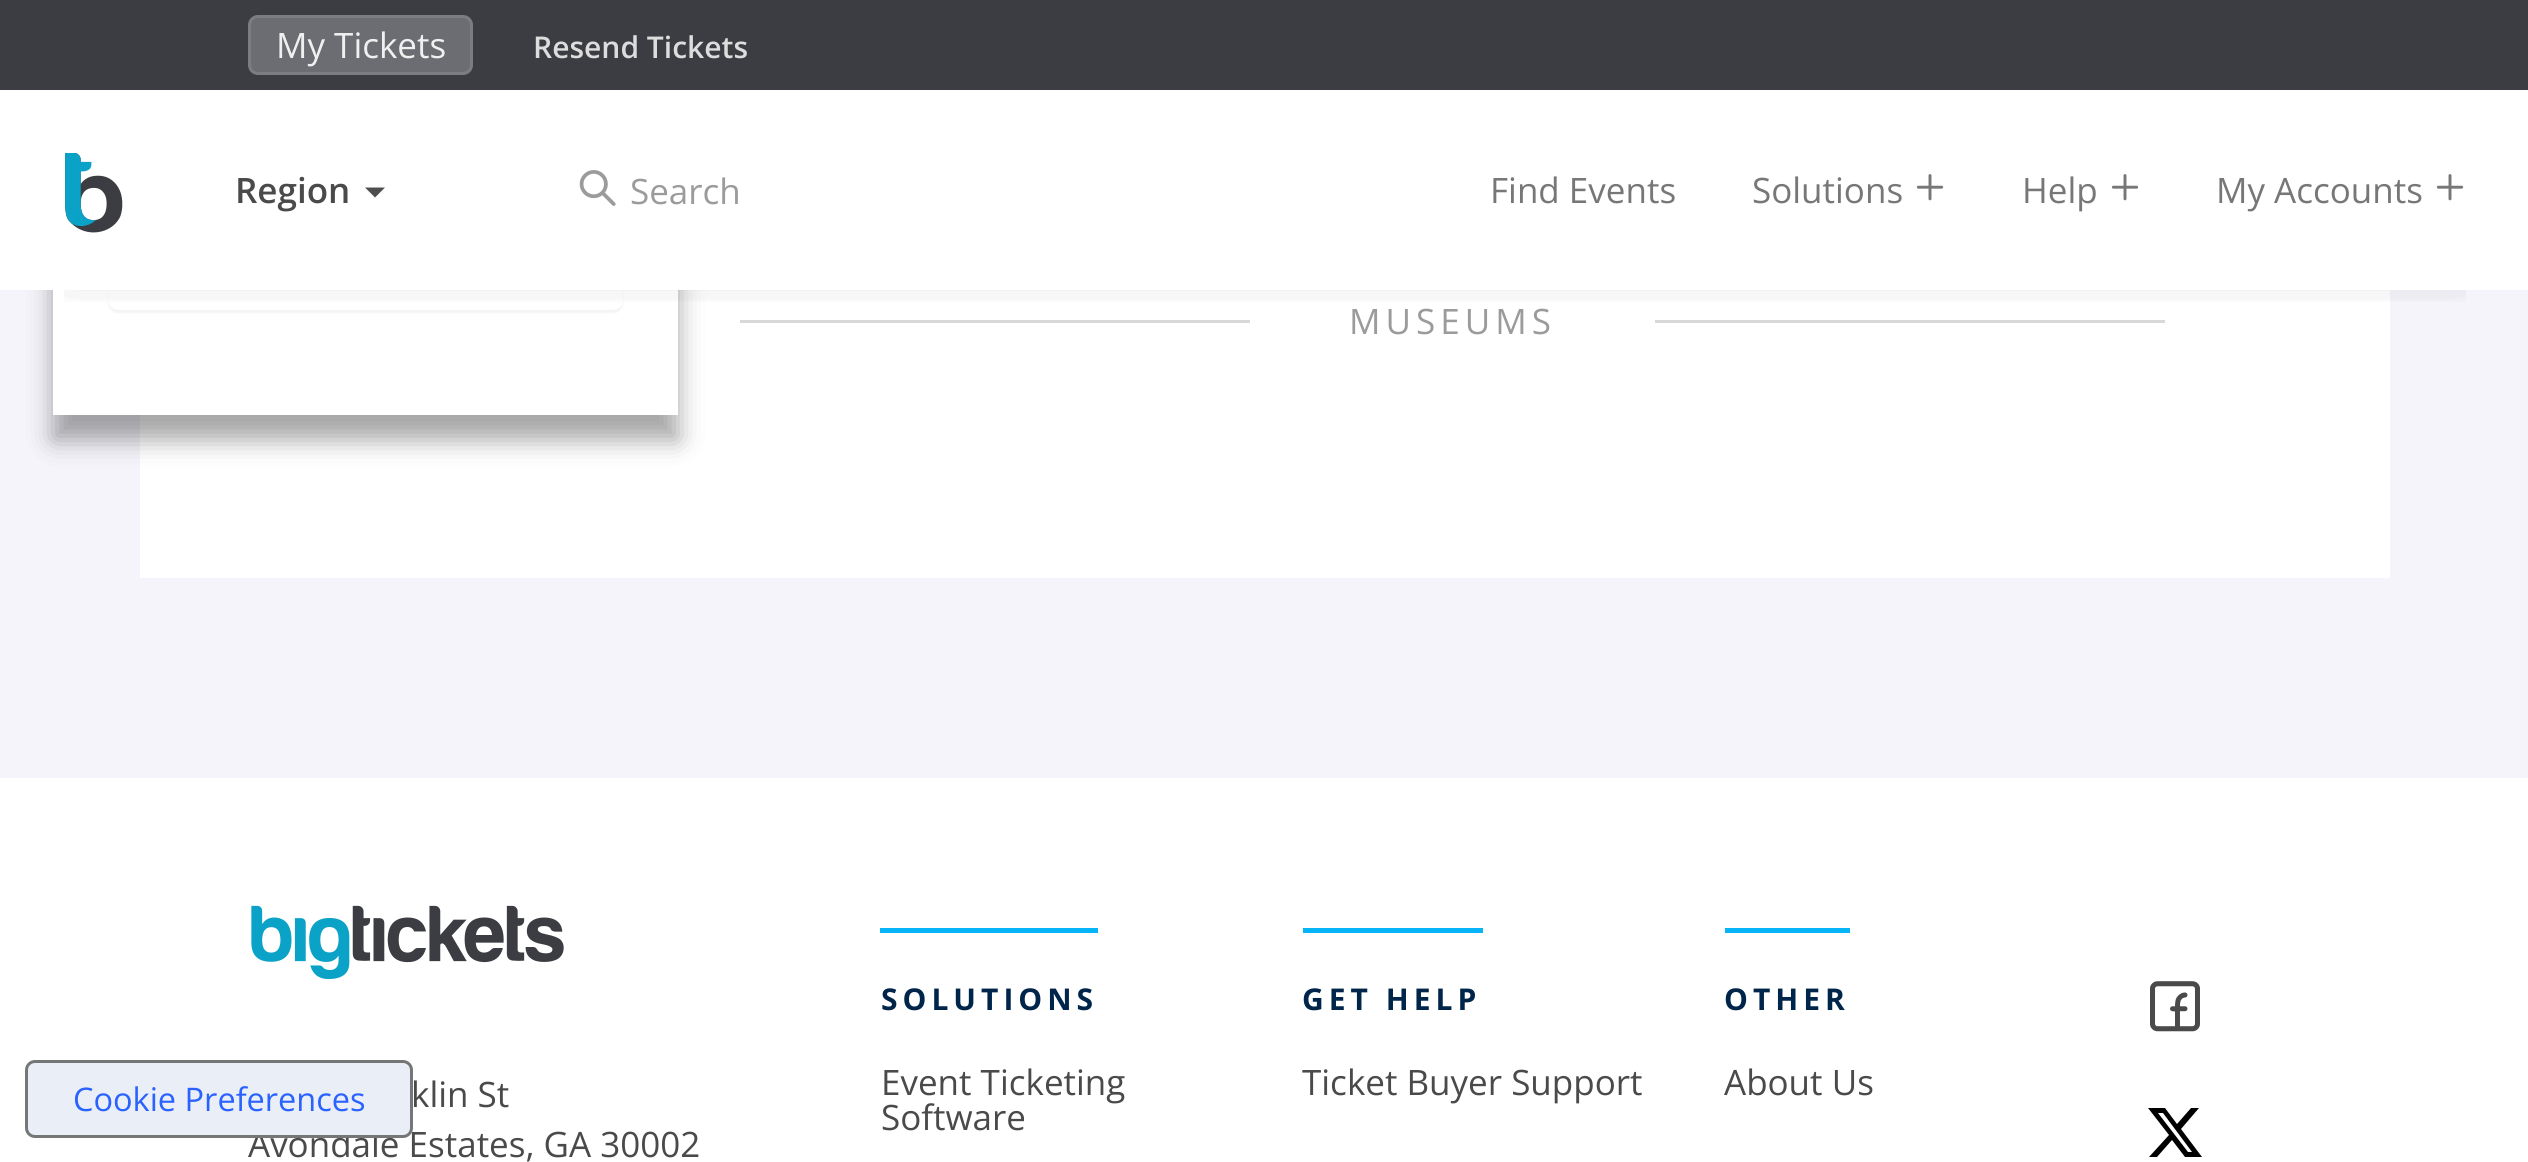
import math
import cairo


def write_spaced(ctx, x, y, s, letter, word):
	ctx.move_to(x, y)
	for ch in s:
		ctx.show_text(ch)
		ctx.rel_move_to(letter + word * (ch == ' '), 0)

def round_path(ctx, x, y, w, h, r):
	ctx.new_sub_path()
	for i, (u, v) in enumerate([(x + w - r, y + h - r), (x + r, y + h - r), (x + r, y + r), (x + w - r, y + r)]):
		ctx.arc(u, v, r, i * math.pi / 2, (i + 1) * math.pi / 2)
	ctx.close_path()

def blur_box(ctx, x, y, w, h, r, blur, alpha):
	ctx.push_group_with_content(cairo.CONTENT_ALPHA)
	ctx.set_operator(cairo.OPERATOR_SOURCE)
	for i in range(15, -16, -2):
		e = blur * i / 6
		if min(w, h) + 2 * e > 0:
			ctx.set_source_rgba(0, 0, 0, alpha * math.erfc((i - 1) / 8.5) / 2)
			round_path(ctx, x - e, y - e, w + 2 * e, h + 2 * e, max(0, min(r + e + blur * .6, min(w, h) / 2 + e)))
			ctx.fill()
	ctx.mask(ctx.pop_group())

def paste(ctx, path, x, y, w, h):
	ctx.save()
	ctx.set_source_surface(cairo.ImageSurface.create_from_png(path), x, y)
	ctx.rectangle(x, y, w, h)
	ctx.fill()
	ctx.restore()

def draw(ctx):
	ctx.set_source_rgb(0.957, 0.957, 0.98)
	ctx.paint()
	ctx.set_source_rgb(1, 1, 1)
	ctx.rectangle(140, 290, 2250, 288)
	ctx.fill()
	ctx.set_source_rgb(0, 0, 0)
	blur_box(ctx, 53, -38, 625, 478, 0, 12.5, 0.35)
	ctx.set_source_rgb(0.235, 0.239, 0.259)
	ctx.rectangle(0, 0, 2528, 90)
	ctx.fill()
	ctx.set_source_rgb(0.424, 0.427, 0.447)
	round_path(ctx, 249.5, 16.5, 222, 57, 8.5)
	ctx.fill_preserve()
	ctx.set_source_rgb(0.486, 0.49, 0.51)
	ctx.set_line_width(3)
	ctx.stroke()
	ctx.select_font_face('Open Sans')
	ctx.set_font_size(35)
	ctx.set_source_rgb(0.941, 0.941, 0.941)
	ctx.move_to(276, 58)
	ctx.show_text('My Tickets')
	ctx.select_font_face('Open Sans SemiBold')
	ctx.set_font_size(30)
	ctx.set_source_rgb(0.867, 0.867, 0.867)
	ctx.move_to(533, 58)
	ctx.show_text('Resend Tickets')
	ctx.set_source_rgb(1, 1, 1)
	ctx.rectangle(53, 290, 625, 125)
	ctx.fill()
	ctx.set_source_rgb(0, 0, 0)
	blur_box(ctx, 108, 215, 515, 98, 10, 1, 0.05)
	ctx.set_source_rgb(1, 1, 1)
	round_path(ctx, 108, 213, 515, 97, 10)
	ctx.fill()
	ctx.rectangle(0, 90, 2528, 200)
	ctx.fill()
	ctx.set_source_rgb(0.847, 0.847, 0.847)
	ctx.rectangle(740, 320, 510, 3)
	ctx.rectangle(1655, 320, 510, 3)
	ctx.fill()
	ctx.save()
	ctx.rectangle(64, 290, 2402, 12)
	ctx.clip()
	ctx.set_source_rgb(0, 0, 0)
	blur_box(ctx, 65, 170, 2400, 100, 0, 25, 0.2)
	ctx.restore()
	paste(ctx, 'media/1.png', 65, 153, 58, 80)
	ctx.set_font_size(35)
	ctx.set_source_rgb(0.29, 0.29, 0.29)
	ctx.move_to(235, 203)
	ctx.show_text('Region')
	ctx.set_source_rgb(0.302, 0.302, 0.302)
	ctx.new_path()
	ctx.move_to(365, 187.5)
	ctx.line_to(385, 187.5)
	ctx.line_to(375, 197.5)
	ctx.close_path()
	ctx.fill()
	paste(ctx, 'media/2.png', 579, 170, 37, 36)
	ctx.select_font_face('Open Sans')
	ctx.set_source_rgb(0.608, 0.608, 0.608)
	ctx.move_to(630, 204)
	ctx.show_text('Search')
	ctx.set_source_rgb(0.467, 0.467, 0.467)
	ctx.move_to(1490, 203)
	ctx.show_text('Find Events')
	ctx.move_to(1752, 203)
	ctx.show_text('Solutions')
	paste(ctx, 'media/3.png', 1916, 174, 28, 27)
	ctx.move_to(2022, 203)
	ctx.show_text('Help')
	paste(ctx, 'media/3.png', 2111, 174, 28, 27)
	ctx.move_to(2216, 203)
	ctx.show_text('My Accounts')
	paste(ctx, 'media/3.png', 2436, 174, 28, 27)
	ctx.set_source_rgb(0.608, 0.608, 0.608)
	write_spaced(ctx, 1349, 334, 'MUSEUMS', 5, 0)
	ctx.set_source_rgb(1, 1, 1)
	ctx.rectangle(0, 778, 2528, 384)
	ctx.fill()
	ctx.set_source_rgb(0.29, 0.29, 0.29)
	ctx.move_to(248, 1157)
	ctx.show_text('Avondale Estates, GA 30002')
	ctx.set_source_rgb(0.914, 0.933, 0.965)
	round_path(ctx, 26.5, 1061.5, 385, 75, 8.5)
	ctx.fill_preserve()
	ctx.set_source_rgb(0.455, 0.467, 0.459)
	ctx.stroke()
	ctx.set_font_size(32.5)
	ctx.set_source_rgb(0.161, 0.384, 1)
	ctx.move_to(73, 1111)
	ctx.show_text('Cookie Preferences')
	ctx.set_source_rgb(0.027, 0.706, 0.965)
	ctx.rectangle(880, 928, 218, 5)
	ctx.fill()
	ctx.select_font_face('Open Sans', cairo.FONT_SLANT_NORMAL, cairo.FONT_WEIGHT_BOLD)
	ctx.set_font_size(30)
	ctx.set_source_rgb(0, 0.145, 0.29)
	write_spaced(ctx, 881, 1010, 'SOLUTIONS', 5, 0)
	ctx.select_font_face('Open Sans')
	ctx.set_font_size(35)
	ctx.set_source_rgb(0.29, 0.29, 0.29)
	ctx.move_to(881, 1095)
	ctx.show_text('Event Ticketing')
	ctx.move_to(881, 1130)
	ctx.show_text('Software')
	ctx.set_source_rgb(0.027, 0.706, 0.965)
	ctx.rectangle(1303, 928, 180, 5)
	ctx.fill()
	ctx.select_font_face('Open Sans', cairo.FONT_SLANT_NORMAL, cairo.FONT_WEIGHT_BOLD)
	ctx.set_font_size(30)
	ctx.set_source_rgb(0, 0.145, 0.29)
	write_spaced(ctx, 1302, 1010, 'GET HELP', 5, 0)
	ctx.select_font_face('Open Sans')
	ctx.set_font_size(35)
	ctx.set_source_rgb(0.29, 0.29, 0.29)
	ctx.move_to(1302, 1095)
	ctx.show_text('Ticket Buyer Support')
	ctx.set_source_rgb(0.027, 0.706, 0.965)
	ctx.rectangle(1725, 928, 125, 5)
	ctx.fill()
	ctx.select_font_face('Open Sans', cairo.FONT_SLANT_NORMAL, cairo.FONT_WEIGHT_BOLD)
	ctx.set_font_size(30)
	ctx.set_source_rgb(0, 0.145, 0.29)
	write_spaced(ctx, 1724, 1010, 'OTHER', 5, 0)
	ctx.select_font_face('Open Sans')
	ctx.set_font_size(35)
	ctx.set_source_rgb(0.29, 0.29, 0.29)
	ctx.move_to(1724, 1095)
	ctx.show_text('About Us')
	paste(ctx, 'media/4.png', 2150, 981, 50, 51)
	ctx.set_source_rgb(0, 0, 0)
	ctx.new_path()
	ctx.move_to(2191, 1108)
	ctx.line_to(2199, 1108)
	ctx.line_to(2181, 1129)
	ctx.line_to(2202, 1157)
	ctx.line_to(2185, 1157)
	ctx.line_to(2172, 1140)
	ctx.line_to(2157, 1157)
	ctx.line_to(2149, 1157)
	ctx.line_to(2169, 1135)
	ctx.line_to(2148, 1108)
	ctx.line_to(2165, 1108)
	ctx.line_to(2177, 1124)
	ctx.close_path()
	ctx.move_to(2188, 1152)
	ctx.line_to(2192, 1152)
	ctx.line_to(2163, 1113)
	ctx.line_to(2158, 1113)
	ctx.close_path()
	ctx.fill()
	paste(ctx, 'media/5.png', 251, 905, 313, 75)
	ctx.set_source_rgb(0.29, 0.29, 0.29)
	ctx.move_to(411, 1107)
	ctx.show_text('klin St')


surface = cairo.ImageSurface(cairo.FORMAT_RGB24, 2528, 1162)
ctx = cairo.Context(surface)
options = cairo.FontOptions()
options.set_hint_metrics(cairo.HINT_METRICS_OFF)
options.set_hint_style(cairo.HINT_STYLE_NONE)
ctx.set_font_options(options)
ctx.set_miter_limit(4)
draw(ctx)
surface.write_to_png('image.png')
